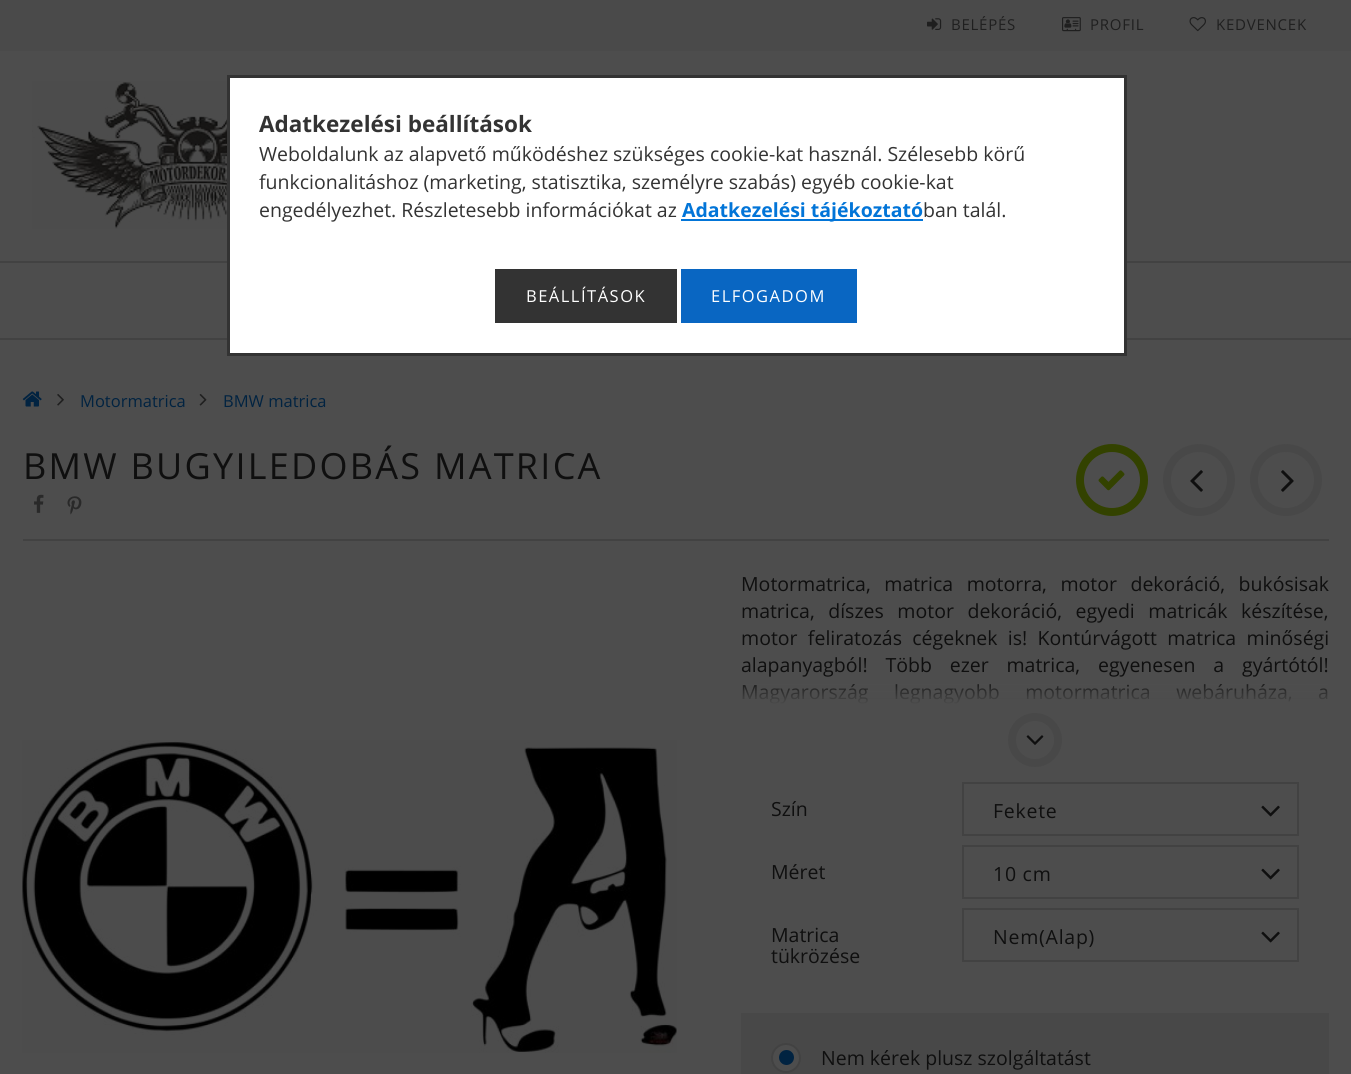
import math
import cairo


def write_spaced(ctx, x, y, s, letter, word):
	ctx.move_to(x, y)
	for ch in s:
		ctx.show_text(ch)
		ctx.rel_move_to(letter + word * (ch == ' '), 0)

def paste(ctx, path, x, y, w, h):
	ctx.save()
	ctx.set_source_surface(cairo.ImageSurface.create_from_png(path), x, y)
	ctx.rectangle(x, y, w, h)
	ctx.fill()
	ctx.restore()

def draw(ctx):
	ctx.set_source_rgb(0.302, 0.302, 0.302)
	ctx.paint()
	ctx.set_source_rgb(0.29, 0.29, 0.29)
	ctx.rectangle(0, 0, 1351, 51)
	ctx.fill()
	paste(ctx, 'media/1.png', 927, 18, 15, 12)
	ctx.select_font_face('Open Sans')
	ctx.set_font_size(15)
	ctx.set_source_rgb(0.122, 0.122, 0.122)
	write_spaced(ctx, 951, 30, 'BELÉPÉS', 0.75, 0)
	paste(ctx, 'media/2.png', 1062, 17, 19, 15)
	write_spaced(ctx, 1090, 30, 'PROFIL', 0.75, 0)
	paste(ctx, 'media/3.png', 1189, 17, 17, 15)
	write_spaced(ctx, 1216, 30, 'KEDVENCEK', 0.75, 0)
	paste(ctx, 'media/4.png', 32, 81, 195, 148)
	ctx.set_source_rgb(0.259, 0.259, 0.259)
	ctx.rectangle(0, 261, 1351, 2)
	ctx.fill()
	ctx.rectangle(0, 338, 1351, 2)
	ctx.fill()
	paste(ctx, 'media/5.png', 22, 391, 20, 16)
	paste(ctx, 'media/6.png', 57, 394, 7, 12)
	ctx.set_font_size(16.5)
	ctx.set_source_rgb(0.004, 0.137, 0.255)
	ctx.move_to(80, 407)
	ctx.show_text('Motormatrica')
	paste(ctx, 'media/7.png', 199, 394, 8, 12)
	ctx.move_to(223, 407)
	ctx.show_text('BMW matrica')
	ctx.set_source_rgb(0.259, 0.259, 0.259)
	ctx.rectangle(23, 539, 1306, 2)
	ctx.fill()
	ctx.set_font_size(36)
	ctx.set_source_rgb(0.059, 0.059, 0.059)
	write_spaced(ctx, 23, 479, 'BMW BUGYILEDOBÁS MATRICA', 2.25, 0)
	paste(ctx, 'media/8.png', 34, 494, 10, 19)
	paste(ctx, 'media/9.png', 67, 496, 15, 19)
	ctx.arc(1112, 480, 32, 0, 2 * math.pi)
	ctx.set_source_rgb(0.2, 0.259, 0)
	ctx.set_line_width(8)
	ctx.stroke()
	paste(ctx, 'media/10.png', 1098, 470, 27, 21)
	ctx.arc(1199, 480, 32, 0, 2 * math.pi)
	ctx.set_source_rgb(0.282, 0.282, 0.282)
	ctx.stroke()
	paste(ctx, 'media/11.png', 1190, 470, 13, 22)
	ctx.arc(1286, 480, 32, 0, 2 * math.pi)
	ctx.stroke()
	paste(ctx, 'media/12.png', 1281, 470, 13, 22)
	paste(ctx, 'media/13.png', 22, 740, 655, 313)
	ctx.set_font_size(19.5)
	ctx.set_source_rgb(0.059, 0.059, 0.059)
	write_spaced(ctx, 741, 591, 'Motormatrica, matrica motorra, motor dekoráció, bukósisak', 0, 8.5)
	write_spaced(ctx, 741, 618, 'matrica, díszes motor dekoráció, egyedi matricák készítése,', 0, 8.5)
	write_spaced(ctx, 741, 645, 'motor feliratozás cégeknek is! Kontúrvágott matrica minőségi', 0, 5.25)
	write_spaced(ctx, 741, 672, 'alapanyagból! Több ezer matrica, egyenesen a gyártótól!', 0, 12.75)
	write_spaced(ctx, 741, 699, 'Magyarország legnagyobb motormatrica webáruháza, a', 0, 20.5)
	gradient = cairo.LinearGradient(1035, 678, 1035, 705)
	gradient.add_color_stop_rgba(0, 0.302, 0.302, 0.302, 0)
	gradient.add_color_stop_rgba(1, 0.302, 0.302, 0.302, 1)
	ctx.set_source(gradient)
	ctx.rectangle(743, 684, 585, 20)
	ctx.fill()
	ctx.arc(1035, 740, 23, 0, 2 * math.pi)
	ctx.set_source_rgb(0.282, 0.282, 0.282)
	ctx.stroke()
	paste(ctx, 'media/14.png', 1026, 735, 18, 10)
	ctx.set_source_rgb(0.059, 0.059, 0.059)
	ctx.move_to(771, 816)
	ctx.show_text('Szín')
	ctx.rectangle(963, 783, 335, 52)
	ctx.set_source_rgb(0.259, 0.259, 0.259)
	ctx.set_line_width(2)
	ctx.stroke()
	ctx.set_source_rgb(0.059, 0.059, 0.059)
	write_spaced(ctx, 993, 818, 'Fekete', 0.75, 0)
	paste(ctx, 'media/15.png', 1261, 805, 19, 12)
	ctx.move_to(771, 879)
	ctx.show_text('Méret')
	ctx.rectangle(963, 846, 335, 52)
	ctx.set_source_rgb(0.259, 0.259, 0.259)
	ctx.stroke()
	ctx.set_source_rgb(0.059, 0.059, 0.059)
	write_spaced(ctx, 993, 881, '10 cm', 0.75, 0)
	paste(ctx, 'media/15.png', 1261, 868, 19, 12)
	ctx.move_to(771, 942)
	ctx.show_text('Matrica')
	ctx.move_to(771, 963)
	ctx.show_text('tükrözése')
	ctx.rectangle(963, 909, 335, 52)
	ctx.set_source_rgb(0.259, 0.259, 0.259)
	ctx.stroke()
	ctx.set_source_rgb(0.059, 0.059, 0.059)
	write_spaced(ctx, 993, 944, 'Nem(Alap)', 0.75, 0)
	paste(ctx, 'media/15.png', 1261, 931, 19, 12)
	ctx.set_source_rgb(0.282, 0.282, 0.282)
	ctx.rectangle(741, 1013, 588, 61)
	ctx.fill()
	ctx.set_source_rgb(0.302, 0.302, 0.302)
	ctx.arc(786, 1058, 14, 0, 2 * math.pi)
	ctx.fill_preserve()
	ctx.set_source_rgb(0.259, 0.259, 0.259)
	ctx.stroke()
	ctx.set_source_rgb(0.004, 0.137, 0.255)
	ctx.arc(786.5, 1057.5, 7.5, 0, 2 * math.pi)
	ctx.fill()
	ctx.set_source_rgb(0.059, 0.059, 0.059)
	ctx.move_to(821, 1065)
	ctx.show_text('Nem kérek plusz szolgáltatást')
	ctx.set_source_rgb(1, 1, 1)
	ctx.rectangle(228.5, 76.5, 897, 278)
	ctx.fill_preserve()
	ctx.set_source_rgb(0.2, 0.2, 0.2)
	ctx.set_line_width(3)
	ctx.stroke()
	ctx.select_font_face('Open Sans', cairo.FONT_SLANT_NORMAL, cairo.FONT_WEIGHT_BOLD)
	ctx.set_font_size(22.5)
	ctx.move_to(259, 132)
	ctx.show_text('Adatkezelési beállítások')
	ctx.select_font_face('Open Sans')
	ctx.set_font_size(19.5)
	for x, y, s in [
		(259, 161, 'Weboldalunk az alapvető működéshez szükséges cookie-kat használ. Szélesebb körű'),
		(259, 189, 'funkcionalitáshoz (marketing, statisztika, személyre szabás) egyéb cookie-kat'),
		(259, 217, 'engedélyezhet. Részletesebb információkat az'),
	]:
		ctx.move_to(x, y)
		ctx.show_text(s)
	ctx.set_source_rgb(0.008, 0.459, 0.847)
	ctx.rectangle(681, 219, 242, 2)
	ctx.fill()
	ctx.select_font_face('Open Sans', cairo.FONT_SLANT_NORMAL, cairo.FONT_WEIGHT_BOLD)
	ctx.move_to(682, 217)
	ctx.show_text('Adatkezelési tájékoztató')
	ctx.select_font_face('Open Sans')
	ctx.set_source_rgb(0.2, 0.2, 0.2)
	ctx.move_to(923, 217)
	ctx.show_text('ban talál.')
	ctx.rectangle(495, 269, 182, 54)
	ctx.fill()
	ctx.set_font_size(16.5)
	ctx.set_source_rgb(1, 1, 1)
	write_spaced(ctx, 526, 302, 'BEÁLLÍTÁSOK', 1.5, 0)
	ctx.set_source_rgb(0.039, 0.4, 0.761)
	ctx.rectangle(681, 269, 176, 54)
	ctx.fill()
	ctx.set_source_rgb(1, 1, 1)
	write_spaced(ctx, 711, 302, 'ELFOGADOM', 1.5, 0)


surface = cairo.ImageSurface(cairo.FORMAT_RGB24, 1351, 1074)
ctx = cairo.Context(surface)
options = cairo.FontOptions()
options.set_hint_metrics(cairo.HINT_METRICS_OFF)
options.set_hint_style(cairo.HINT_STYLE_NONE)
ctx.set_font_options(options)
ctx.set_miter_limit(4)
draw(ctx)
surface.write_to_png('image.png')
